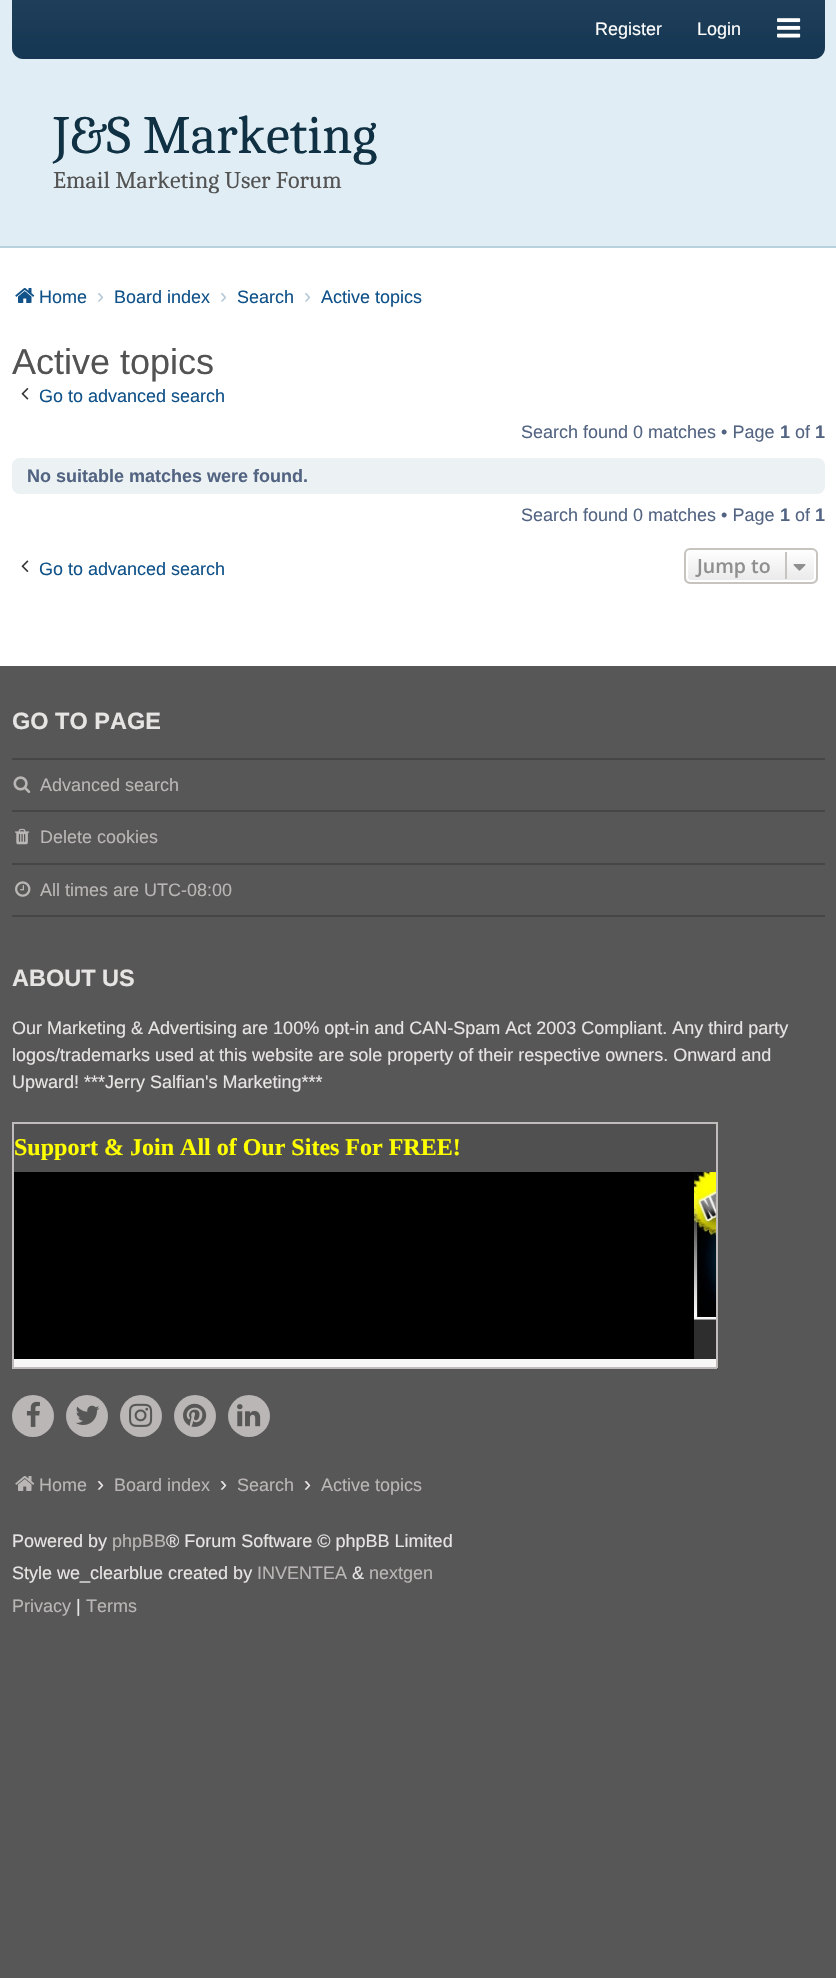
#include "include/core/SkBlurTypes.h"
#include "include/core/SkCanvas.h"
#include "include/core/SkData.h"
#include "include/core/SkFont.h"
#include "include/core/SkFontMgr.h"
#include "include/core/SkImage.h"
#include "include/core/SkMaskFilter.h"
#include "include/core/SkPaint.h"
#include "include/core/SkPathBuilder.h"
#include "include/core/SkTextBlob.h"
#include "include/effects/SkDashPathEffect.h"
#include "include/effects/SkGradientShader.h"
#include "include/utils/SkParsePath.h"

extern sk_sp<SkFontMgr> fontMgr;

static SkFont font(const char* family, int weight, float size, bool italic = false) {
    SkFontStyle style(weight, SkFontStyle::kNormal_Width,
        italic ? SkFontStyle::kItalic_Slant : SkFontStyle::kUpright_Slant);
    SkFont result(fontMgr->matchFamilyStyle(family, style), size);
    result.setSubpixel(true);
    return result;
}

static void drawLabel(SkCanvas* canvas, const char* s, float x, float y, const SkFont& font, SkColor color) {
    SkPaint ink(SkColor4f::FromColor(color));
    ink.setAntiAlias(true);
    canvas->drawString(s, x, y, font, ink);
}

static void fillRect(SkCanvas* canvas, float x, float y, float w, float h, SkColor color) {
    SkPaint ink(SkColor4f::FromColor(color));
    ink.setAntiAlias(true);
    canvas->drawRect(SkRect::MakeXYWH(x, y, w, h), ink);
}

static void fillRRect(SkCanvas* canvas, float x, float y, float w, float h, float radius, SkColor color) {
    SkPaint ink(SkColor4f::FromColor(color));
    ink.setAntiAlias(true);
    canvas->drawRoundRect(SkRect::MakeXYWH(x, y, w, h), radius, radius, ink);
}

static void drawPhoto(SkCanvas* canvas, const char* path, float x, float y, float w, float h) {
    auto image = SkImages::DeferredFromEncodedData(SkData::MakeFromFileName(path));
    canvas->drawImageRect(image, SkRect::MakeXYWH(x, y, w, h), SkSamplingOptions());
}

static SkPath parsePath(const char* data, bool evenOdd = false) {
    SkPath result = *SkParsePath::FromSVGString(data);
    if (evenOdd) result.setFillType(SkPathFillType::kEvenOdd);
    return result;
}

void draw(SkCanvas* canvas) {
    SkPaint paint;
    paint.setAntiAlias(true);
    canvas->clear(0xFFFFFFFF);
    fillRect(canvas, 0, 0, 836, 246, 0xFFE0EDF4);
    {
        const SkColor colors[] = {0xFF1F3E59, 0xFF153753};
        const float stops[] = {0, 1};
        const SkPoint ends[] = {{419, 0}, {419, 59}};
        paint.setShader(SkGradientShader::MakeLinear(ends, colors, stops, 2, SkTileMode::kClamp));
        paint.setAlpha(255);
    }
    canvas->drawPath(parsePath("M12 0H825V48C825 54 820 59 814 59H23C17 59 12 54 12 48Z"), paint);
    SkFont font1 = font("Liberation Sans", 400, 18);
    drawLabel(canvas, "Register", 595, 35, font1, 0xFFFFFFFF);
    drawLabel(canvas, "Login", 697, 35, font1, 0xFFFFFFFF);
    drawPhoto(canvas, "assets/img1.png", 777, 18, 24, 20);
    fillRect(canvas, 0, 246, 836, 2, 0xFFBAD1DE);
    SkFont font2 = font("Caladea", 400, 54);
    drawLabel(canvas, "J&S Marketing", 53, 153, font2, 0xFF103143);
    SkFont font3 = font("Caladea", 400, 24);
    drawLabel(canvas, "Email Marketing User Forum", 53, 188, font3, 0xFF535353);
    drawPhoto(canvas, "assets/img2.png", 15, 288, 20, 15);
    drawLabel(canvas, "Home", 39, 303, font1, 0xFF105289);
    SkFont font4 = font("Liberation Sans", 400, 21);
    drawLabel(canvas, "›", 97, 303, font4, 0xFFB7C9D7);
    drawLabel(canvas, "Board index", 114, 303, font1, 0xFF105289);
    drawLabel(canvas, "›", 220, 303, font4, 0xFFB7C9D7);
    drawLabel(canvas, "Search", 237, 303, font1, 0xFF105289);
    drawLabel(canvas, "›", 304, 303, font4, 0xFFB7C9D7);
    drawLabel(canvas, "Active topics", 321, 303, font1, 0xFF105289);
    SkFont font5 = font("Liberation Sans", 400, 36);
    drawLabel(canvas, "Active topics", 12, 374, font5, 0xFF535353);
    drawPhoto(canvas, "assets/img3.png", 21, 388, 8, 12);
    drawLabel(canvas, "Go to advanced search", 39, 402, font1, 0xFF105289);
    drawLabel(canvas, "Search found 0 matches • Page", 521, 438, font1, 0xFF536482);
    SkFont font6 = font("Liberation Sans", 700, 18);
    drawLabel(canvas, "1", 780, 438, font6, 0xFF536482);
    drawLabel(canvas, "of", 795, 438, font1, 0xFF536482);
    drawLabel(canvas, "1", 815, 438, font6, 0xFF536482);
    fillRRect(canvas, 12, 458, 813, 36, 8, 0xFFECF1F3);
    drawLabel(canvas, "No suitable matches were found.", 27, 482, font6, 0xFF536482);
    drawLabel(canvas, "Search found 0 matches • Page", 521, 521, font1, 0xFF536482);
    drawLabel(canvas, "1", 780, 521, font6, 0xFF536482);
    drawLabel(canvas, "of", 795, 521, font1, 0xFF536482);
    drawLabel(canvas, "1", 815, 521, font6, 0xFF536482);
    drawPhoto(canvas, "assets/img4.png", 21, 560, 8, 12);
    drawLabel(canvas, "Go to advanced search", 39, 575, font1, 0xFF105289);
    canvas->save();
    canvas->clipPath(parsePath("M690 548H812C815.5 548 818 550.5 818 554V578C818 581.5 815.5 584 812 584H690C686.5 584 684 581.5 684 578V554C684 550.5 686.5 548 690 548Z"), true);
    {
        const SkColor colors[] = {0xFFFFFFFF, 0xFFE9E9E9};
        const float stops[] = {0, 1};
        const SkPoint ends[] = {{751, 549}, {751, 582}};
        paint.setShader(SkGradientShader::MakeLinear(ends, colors, stops, 2, SkTileMode::kClamp));
        paint.setAlpha(255);
    }
    canvas->drawRect(SkRect::MakeXYWH(684, 549, 134, 33), paint);
    canvas->restore();
    paint.setStroke(true);
    paint.setStrokeWidth(2);
    paint.setShader(nullptr);
    paint.setColor(0xFFFFFFFF);
    canvas->drawRoundRect(SkRect::MakeXYWH(687, 550, 128, 31), 4, 4, paint);
    paint.setColor(0xFFC7C3BF);
    canvas->drawRoundRect(SkRect::MakeXYWH(685, 549, 132, 34), 5, 5, paint);
    SkFont font7 = font("Open Sans", 600, 19.5f);
    drawLabel(canvas, "Jump to", 697, 573, font7, 0xFF8F8F8F);
    fillRect(canvas, 785, 552, 2, 27, 0xFFC7C3BF);
    drawPhoto(canvas, "assets/img5.png", 793, 564, 13, 7);
    fillRect(canvas, 0, 666, 836, 1312, 0xFF585757);
    SkFont font8 = font("Liberation Sans", 700, 23.5f);
    drawLabel(canvas, "GO TO PAGE", 12, 729, font8, 0xFFE7E4E4);
    fillRect(canvas, 12, 758, 813, 2, 0xFF474646);
    drawPhoto(canvas, "assets/img6.png", 13, 776, 18, 17);
    drawLabel(canvas, "Advanced search", 40, 791, font1, 0xFFBAB6B6);
    fillRect(canvas, 12, 810, 813, 2, 0xFF474646);
    drawPhoto(canvas, "assets/img7.png", 15, 828, 15, 17);
    drawLabel(canvas, "Delete cookies", 40, 843, font1, 0xFFBAB6B6);
    fillRect(canvas, 12, 863, 813, 2, 0xFF474646);
    fillRect(canvas, 12, 915, 813, 2, 0xFF474646);
    drawPhoto(canvas, "assets/img8.png", 15, 881, 16, 16);
    drawLabel(canvas, "All times are UTC-08:00", 40, 896, font1, 0xFFBAB6B6);
    drawLabel(canvas, "ABOUT US", 12, 986, font8, 0xFFE7E4E4);
    drawLabel(canvas, "Our Marketing & Advertising are 100% opt-in and CAN-Spam Act 2003 Compliant. Any third party", 12, 1034, font1, 0xFFE7E4E4);
    drawLabel(canvas, "logos/trademarks used at this website are sole property of their respective owners. Onward and", 12, 1061, font1, 0xFFE7E4E4);
    drawLabel(canvas, "Upward! ***Jerry Salfian's Marketing***", 12, 1088, font1, 0xFFE7E4E4);
    fillRect(canvas, 14, 1359, 702, 8, 0xFFF8F8F8);
    fillRect(canvas, 12, 1122, 705, 2, 0xFFC0BCBC);
    fillRect(canvas, 716, 1122, 2, 246, 0xFFC0BCBC);
    fillRect(canvas, 12, 1367, 705, 2, 0xFFC0BCBC);
    fillRect(canvas, 12, 1122, 2, 246, 0xFFC0BCBC);
    fillRect(canvas, 14, 1124, 702, 48, 0xFF505050);
    SkFont font9 = font("Liberation Serif", 700, 24);
    drawLabel(canvas, "Support & Join All of Our Sites For FREE!", 14, 1155, font9, 0xFFFFFF00);
    fillRect(canvas, 14, 1172, 680, 187, 0xFF000000);
    drawPhoto(canvas, "assets/img9.png", 694, 1172, 22, 187);
    paint.setStroke(false);
    paint.setColor(0xFFBAB6B6);
    canvas->drawCircle(33, 1416, 21, paint);
    drawPhoto(canvas, "assets/img10.png", 26, 1401, 14, 26);
    canvas->drawCircle(87, 1416, 21, paint);
    drawPhoto(canvas, "assets/img11.png", 76, 1405, 24, 20);
    canvas->drawCircle(141, 1416, 21, paint);
    drawPhoto(canvas, "assets/img12.png", 129, 1403, 24, 24);
    canvas->drawCircle(195, 1416, 21, paint);
    drawPhoto(canvas, "assets/img13.png", 183, 1403, 24, 24);
    canvas->drawCircle(249, 1416, 21, paint);
    drawPhoto(canvas, "assets/img14.png", 237, 1404, 24, 23);
    drawPhoto(canvas, "assets/img15.png", 15, 1476, 20, 15);
    drawLabel(canvas, "Home", 39, 1491, font1, 0xFFBAB6B6);
    drawLabel(canvas, "›", 97, 1491, font4, 0xFFE7E4E4);
    drawLabel(canvas, "Board index", 114, 1491, font1, 0xFFBAB6B6);
    drawLabel(canvas, "›", 220, 1491, font4, 0xFFE7E4E4);
    drawLabel(canvas, "Search", 237, 1491, font1, 0xFFBAB6B6);
    drawLabel(canvas, "›", 304, 1491, font4, 0xFFE7E4E4);
    drawLabel(canvas, "Active topics", 321, 1491, font1, 0xFFBAB6B6);
    drawLabel(canvas, "Powered by", 12, 1547, font1, 0xFFE7E4E4);
    drawLabel(canvas, "phpBB", 112, 1547, font1, 0xFFBAB6B6);
    drawLabel(canvas, "® Forum Software © phpBB Limited", 166, 1547, font1, 0xFFE7E4E4);
    drawLabel(canvas, "Style we_clearblue created by", 12, 1579, font1, 0xFFE7E4E4);
    drawLabel(canvas, "INVENTEA", 257, 1579, font1, 0xFFBAB6B6);
    drawLabel(canvas, "&", 352, 1579, font1, 0xFFE7E4E4);
    drawLabel(canvas, "nextgen", 369, 1579, font1, 0xFFBAB6B6);
    drawLabel(canvas, "Privacy", 12, 1612, font1, 0xFFBAB6B6);
    drawLabel(canvas, "|", 76, 1612, font1, 0xFFE7E4E4);
    drawLabel(canvas, "Terms", 86, 1612, font1, 0xFFBAB6B6);
}
